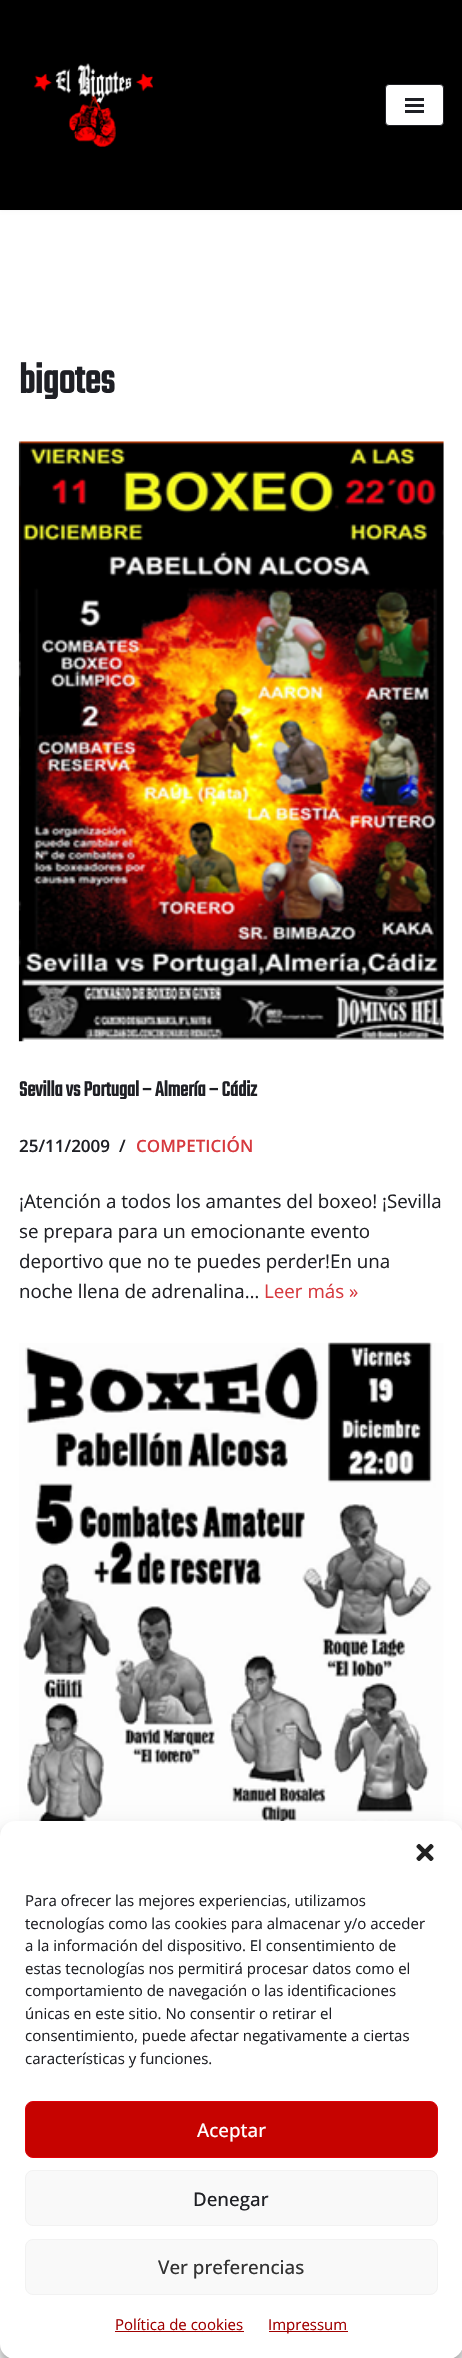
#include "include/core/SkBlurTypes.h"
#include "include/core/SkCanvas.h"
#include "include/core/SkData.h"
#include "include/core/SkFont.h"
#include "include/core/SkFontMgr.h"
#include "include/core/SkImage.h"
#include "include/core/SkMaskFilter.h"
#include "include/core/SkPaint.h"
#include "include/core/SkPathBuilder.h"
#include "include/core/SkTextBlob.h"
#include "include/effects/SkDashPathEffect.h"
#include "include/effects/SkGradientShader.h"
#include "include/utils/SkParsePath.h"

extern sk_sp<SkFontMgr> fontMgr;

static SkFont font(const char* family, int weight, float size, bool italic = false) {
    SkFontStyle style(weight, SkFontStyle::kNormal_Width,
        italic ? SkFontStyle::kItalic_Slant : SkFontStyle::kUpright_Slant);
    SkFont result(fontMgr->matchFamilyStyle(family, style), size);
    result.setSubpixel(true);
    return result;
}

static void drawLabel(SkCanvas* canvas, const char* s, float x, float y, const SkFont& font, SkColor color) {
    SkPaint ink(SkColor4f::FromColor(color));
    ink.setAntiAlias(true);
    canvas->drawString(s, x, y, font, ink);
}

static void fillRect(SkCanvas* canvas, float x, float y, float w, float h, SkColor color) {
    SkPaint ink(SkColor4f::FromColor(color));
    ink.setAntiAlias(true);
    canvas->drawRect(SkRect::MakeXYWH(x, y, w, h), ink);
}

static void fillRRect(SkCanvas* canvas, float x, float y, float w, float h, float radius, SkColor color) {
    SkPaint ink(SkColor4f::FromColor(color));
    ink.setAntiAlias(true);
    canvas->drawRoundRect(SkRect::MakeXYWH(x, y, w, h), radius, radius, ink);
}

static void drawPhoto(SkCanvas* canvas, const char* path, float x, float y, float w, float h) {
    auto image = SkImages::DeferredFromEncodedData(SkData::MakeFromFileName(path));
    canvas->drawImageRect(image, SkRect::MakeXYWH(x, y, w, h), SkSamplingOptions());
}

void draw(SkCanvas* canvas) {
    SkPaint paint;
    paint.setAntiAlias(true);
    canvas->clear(0xFFFFFFFF);
    paint.setColor(0x1A000000);
    paint.setMaskFilter(SkMaskFilter::MakeBlur(kNormal_SkBlurStyle, 2));
    canvas->drawRect(SkRect::MakeXYWH(0, -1, 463, 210), paint);
    paint.setMaskFilter(nullptr);
    fillRect(canvas, 0, 0, 462, 210, 0xFF000000);
    drawPhoto(canvas, "assets/img1.png", 34, 63, 119, 84);
    paint.setColor(0xFFFFFFFF);
    canvas->drawRoundRect(SkRect::MakeXYWH(385.5f, 84.5f, 58, 41), 3.5f, 3.5f, paint);
    paint.setStroke(true);
    paint.setStrokeWidth(1);
    paint.setColor(0xFF1F2025);
    canvas->drawRoundRect(SkRect::MakeXYWH(385.5f, 84.5f, 58, 41), 3.5f, 3.5f, paint);
    fillRect(canvas, 405, 98, 19, 3, 0xFF1F2025);
    fillRect(canvas, 405, 104, 19, 3, 0xFF1F2025);
    fillRect(canvas, 405, 110, 19, 3, 0xFF1F2025);
    SkFont font1 = font("Teko", 700, 44);
    drawLabel(canvas, "bigotes", 19, 393, font1, 0xFF1F2025);
    drawPhoto(canvas, "assets/img2.png", 18, 441, 426, 601);
    SkFont font2 = font("Teko", 700, 22.5f);
    drawLabel(canvas, "Sevilla vs Portugal – Almería – Cádiz", 19, 1096, font2, 0xFF1F2025);
    SkFont font3 = font("Open Sans", 600, 17);
    drawLabel(canvas, "25/11/2009", 19, 1152, font3, 0xFF1F2025);
    drawLabel(canvas, "/", 119, 1152, font3, 0xFF1F2025);
    drawLabel(canvas, "COMPETICIÓN", 136, 1152, font3, 0xFFD7393E);
    SkFont font4 = font("Open Sans", 400, 18.75f);
    drawLabel(canvas, "¡Atención a todos los amantes del boxeo! ¡Sevilla", 19, 1208, font4, 0xFF1F2025);
    drawLabel(canvas, "se prepara para un emocionante evento", 19, 1238, font4, 0xFF1F2025);
    drawLabel(canvas, "deportivo que no te puedes perder!En una", 19, 1268, font4, 0xFF1F2025);
    drawLabel(canvas, "noche llena de adrenalina…", 19, 1298, font4, 0xFF1F2025);
    drawLabel(canvas, "Leer más »", 264, 1298, font4, 0xFFD7393E);
    drawPhoto(canvas, "assets/img3.png", 18, 1342, 426, 479);
    paint.setStroke(false);
    paint.setColor(0x3B000000);
    paint.setMaskFilter(SkMaskFilter::MakeBlur(kNormal_SkBlurStyle, 4));
    canvas->drawRoundRect(SkRect::MakeXYWH(0, 1829, 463, 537), 15, 15, paint);
    paint.setMaskFilter(nullptr);
    paint.setColor(0x30000000);
    paint.setMaskFilter(SkMaskFilter::MakeBlur(kNormal_SkBlurStyle, 12.5f));
    canvas->drawRoundRect(SkRect::MakeXYWH(0, 1834, 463, 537), 15, 15, paint);
    paint.setMaskFilter(nullptr);
    fillRRect(canvas, 0, 1821, 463, 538, 15, 0xFFFFFFFF);
    drawPhoto(canvas, "assets/img4.png", 416, 1843, 18, 18);
    SkFont font5 = font("Open Sans", 400, 15);
    drawLabel(canvas, "Para ofrecer las mejores experiencias, utilizamos", 25, 1906, font5, 0xFF1F2025);
    drawLabel(canvas, "tecnologías como las cookies para almacenar y/o acceder", 25, 1929, font5, 0xFF1F2025);
    drawLabel(canvas, "a la información del dispositivo. El consentimiento de", 25, 1951, font5, 0xFF1F2025);
    drawLabel(canvas, "estas tecnologías nos permitirá procesar datos como el", 25, 1974, font5, 0xFF1F2025);
    drawLabel(canvas, "comportamiento de navegación o las identificaciones", 25, 1996, font5, 0xFF1F2025);
    drawLabel(canvas, "únicas en este sitio. No consentir o retirar el", 25, 2019, font5, 0xFF1F2025);
    drawLabel(canvas, "consentimiento, puede afectar negativamente a ciertas", 25, 2041, font5, 0xFF1F2025);
    drawLabel(canvas, "características y funciones.", 25, 2064, font5, 0xFF1F2025);
    paint.setColor(0xFFC60300);
    canvas->drawRoundRect(SkRect::MakeXYWH(25.5f, 2101.5f, 412, 56), 7.5f, 7.5f, paint);
    paint.setStroke(true);
    paint.setColor(0xFFE20007);
    canvas->drawRoundRect(SkRect::MakeXYWH(25.5f, 2101.5f, 412, 56), 7.5f, 7.5f, paint);
    SkFont font6 = font("Open Sans", 500, 18.75f);
    drawLabel(canvas, "Aceptar", 197, 2137, font6, 0xFFFFFFFF);
    paint.setStroke(false);
    paint.setColor(0xFFF9F9F9);
    canvas->drawRoundRect(SkRect::MakeXYWH(25.5f, 2170.5f, 412, 55), 7.5f, 7.5f, paint);
    paint.setStroke(true);
    paint.setColor(0xFFF2F2F2);
    canvas->drawRoundRect(SkRect::MakeXYWH(25.5f, 2170.5f, 412, 55), 7.5f, 7.5f, paint);
    drawLabel(canvas, "Denegar", 193, 2206, font6, 0xFF1F2025);
    paint.setStroke(false);
    paint.setColor(0xFFF9F9F9);
    canvas->drawRoundRect(SkRect::MakeXYWH(25.5f, 2239.5f, 412, 55), 7.5f, 7.5f, paint);
    paint.setStroke(true);
    paint.setColor(0xFFF2F2F2);
    canvas->drawRoundRect(SkRect::MakeXYWH(25.5f, 2239.5f, 412, 55), 7.5f, 7.5f, paint);
    drawLabel(canvas, "Ver preferencias", 158, 2274, font6, 0xFF333333);
    drawLabel(canvas, "Política de cookies", 115, 2330, font5, 0xFFA00000);
    fillRect(canvas, 115, 2331, 129, 1, 0xFFA00000);
    fillRect(canvas, 269, 2331, 79, 1, 0xFFA00000);
    drawLabel(canvas, "Impressum", 268, 2330, font5, 0xFFA00000);
}
